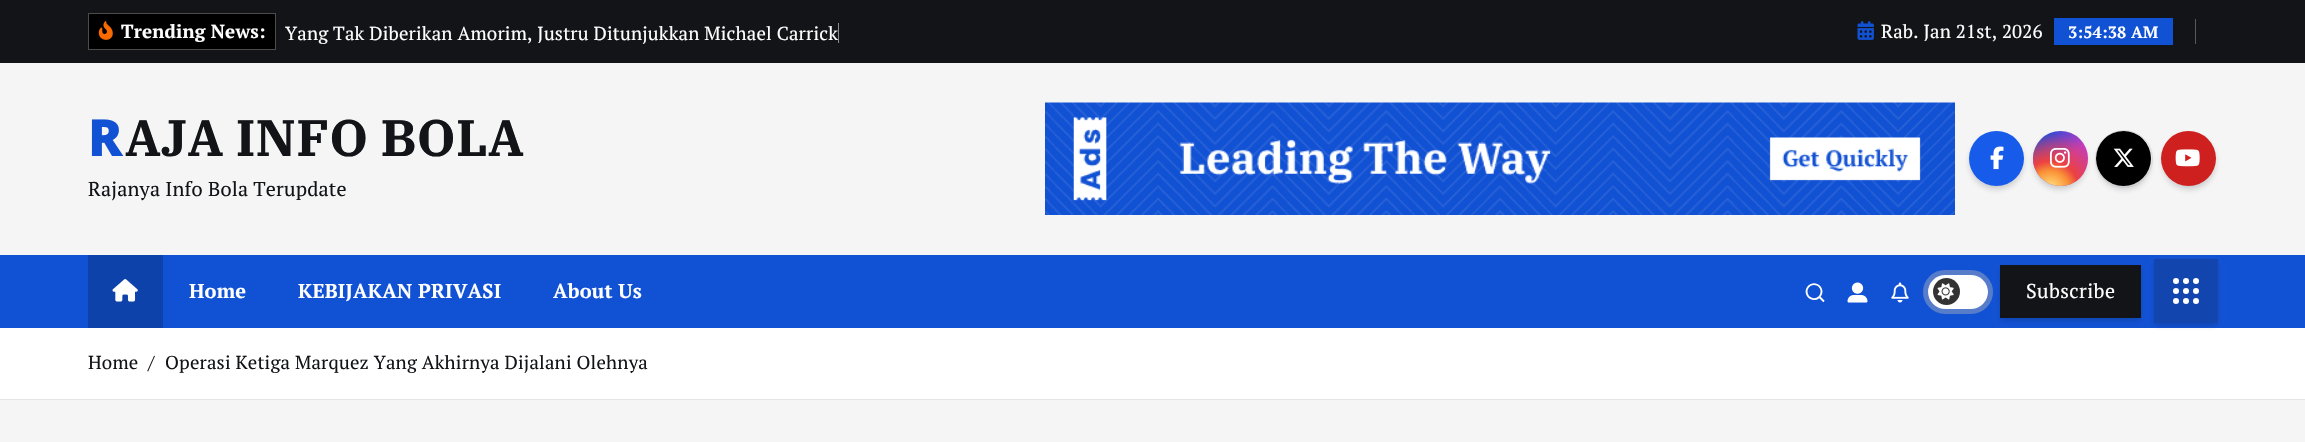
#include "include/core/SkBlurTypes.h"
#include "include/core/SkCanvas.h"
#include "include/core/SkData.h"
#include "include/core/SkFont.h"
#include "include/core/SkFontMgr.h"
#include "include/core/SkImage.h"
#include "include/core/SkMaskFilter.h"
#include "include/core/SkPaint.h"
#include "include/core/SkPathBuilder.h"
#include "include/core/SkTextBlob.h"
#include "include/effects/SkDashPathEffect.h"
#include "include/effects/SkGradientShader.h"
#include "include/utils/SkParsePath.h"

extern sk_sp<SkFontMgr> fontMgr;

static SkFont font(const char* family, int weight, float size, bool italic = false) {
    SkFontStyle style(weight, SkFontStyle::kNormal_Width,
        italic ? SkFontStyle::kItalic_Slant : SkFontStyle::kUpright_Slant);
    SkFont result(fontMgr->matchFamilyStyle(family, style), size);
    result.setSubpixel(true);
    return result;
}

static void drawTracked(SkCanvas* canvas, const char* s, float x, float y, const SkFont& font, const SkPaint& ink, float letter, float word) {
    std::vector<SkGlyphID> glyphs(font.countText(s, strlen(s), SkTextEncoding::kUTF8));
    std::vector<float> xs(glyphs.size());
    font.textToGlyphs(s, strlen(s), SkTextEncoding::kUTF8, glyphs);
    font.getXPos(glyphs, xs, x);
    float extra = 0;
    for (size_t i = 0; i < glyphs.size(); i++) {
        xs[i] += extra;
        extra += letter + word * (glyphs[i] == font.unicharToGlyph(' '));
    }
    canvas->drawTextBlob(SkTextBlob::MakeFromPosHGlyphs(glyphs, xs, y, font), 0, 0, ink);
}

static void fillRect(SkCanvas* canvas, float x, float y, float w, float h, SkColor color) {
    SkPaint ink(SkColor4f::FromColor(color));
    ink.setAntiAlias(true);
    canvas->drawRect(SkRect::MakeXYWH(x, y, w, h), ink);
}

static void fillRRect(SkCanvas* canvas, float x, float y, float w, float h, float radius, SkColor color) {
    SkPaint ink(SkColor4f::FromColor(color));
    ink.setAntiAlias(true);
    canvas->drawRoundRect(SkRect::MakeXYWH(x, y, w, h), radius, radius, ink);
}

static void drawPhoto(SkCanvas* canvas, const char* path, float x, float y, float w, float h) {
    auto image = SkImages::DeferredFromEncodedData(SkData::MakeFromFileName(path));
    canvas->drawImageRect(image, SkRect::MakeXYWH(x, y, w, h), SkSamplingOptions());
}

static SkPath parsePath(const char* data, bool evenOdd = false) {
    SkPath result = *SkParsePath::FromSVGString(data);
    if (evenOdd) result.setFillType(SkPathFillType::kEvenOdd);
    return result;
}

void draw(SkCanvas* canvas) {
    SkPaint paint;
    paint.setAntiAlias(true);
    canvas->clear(0xFFF5F5F5);
    fillRect(canvas, 0, 0, 2305, 63, 0xFF121418);
    paint.setColor(0xFF000000);
    canvas->drawRect(SkRect::MakeXYWH(88.5f, 13.5f, 187, 36), paint);
    paint.setStroke(true);
    paint.setStrokeWidth(1);
    paint.setColor(0xFF4C4C4C);
    canvas->drawRect(SkRect::MakeXYWH(88.5f, 13.5f, 187, 36), paint);
    drawPhoto(canvas, "assets/img1.png", 98, 21, 15, 19);
    SkFont font1 = font("PT Serif", 700, 18.75f);
    paint.setStroke(false);
    paint.setColor(0xFFFFFFFF);
    drawTracked(canvas, "Trending News:", 121, 38, font1, paint, 0.2f, 0);
    SkFont font2 = font("PT Serif", 400, 18.75f);
    drawTracked(canvas, "Yang Tak Diberikan Amorim, Justru Ditunjukkan Michael Carrick", 285, 40, font2, paint, 0.2f, 0);
    fillRect(canvas, 838, 23, 1, 20, 0xB3BDBDBD);
    drawPhoto(canvas, "assets/img2.png", 1857, 21, 17, 19);
    drawTracked(canvas, "Rab. Jan 21st, 2026", 1881, 38, font2, paint, 0.2f, 0);
    fillRect(canvas, 2054, 18, 119, 27, 0xFF1151D3);
    SkFont font3 = font("PT Serif", 700, 16.25f);
    drawTracked(canvas, "3:54:38 AM", 2068, 38, font3, paint, 0.2f, 0);
    fillRect(canvas, 2195, 19, 1, 25, 0xFF56585A);
    SkFont font4 = font("Noto Sans", 900, 51.25f);
    paint.setColor(0xFF1151D3);
    drawTracked(canvas, "R", 88, 156, font4, paint, 0.2f, 0);
    SkFont font5 = font("IBM Plex Serif", 700, 51.25f);
    paint.setColor(0xFF121418);
    drawTracked(canvas, "AJA INFO BOLA", 125, 156, font5, paint, 0.2f, 0);
    SkFont font6 = font("PT Serif", 400, 20);
    drawTracked(canvas, "Rajanya Info Bola Terupdate", 88, 196, font6, paint, 0.2f, 0);
    drawPhoto(canvas, "assets/img3.png", 1045, 102, 910, 113);
    paint.setColor(0x33070A19);
    paint.setMaskFilter(SkMaskFilter::MakeBlur(kNormal_SkBlurStyle, 3));
    canvas->drawRoundRect(SkRect::MakeXYWH(1970, 136, 53, 53), 26.5f, 26.5f, paint);
    paint.setMaskFilter(nullptr);
    paint.setColor(0xFF175BEB);
    canvas->drawCircle(1996.5f, 158.5f, 27.5f, paint);
    drawPhoto(canvas, "assets/img4.png", 1990, 146, 14, 24);
    paint.setColor(0x33070A19);
    paint.setMaskFilter(SkMaskFilter::MakeBlur(kNormal_SkBlurStyle, 3));
    canvas->drawRoundRect(SkRect::MakeXYWH(2034, 136, 52, 53), 26, 26, paint);
    paint.setMaskFilter(nullptr);
    {
        const SkColor colors[] = {0xFF234BD7, 0xFFC33CBE};
        const float stops[] = {0.12f, 0.58f};
        const SkPoint ends[] = {{2033, 131}, {2088, 186}};
        paint.setShader(SkGradientShader::MakeLinear(ends, colors, stops, 2, SkTileMode::kClamp));
        paint.setAlpha(255);
    }
    canvas->drawCircle(2060.5f, 158.5f, 27.5f, paint);
    {
        const SkColor colors[] = {0xFFFFE17D, 0xFFFFCD69, 0xFFFA9137, 0xFFEB4141, 0x00EB4141};
        const float stops[] = {0, 0.1f, 0.28f, 0.42f, 0.82f};
        paint.setShader(SkGradientShader::MakeRadial({2050, 190}, 69, colors, stops, 5, SkTileMode::kClamp));
        paint.setAlpha(255);
    }
    canvas->drawCircle(2060.5f, 158.5f, 27.5f, paint);
    drawPhoto(canvas, "assets/img5.png", 2050, 148, 20, 20);
    paint.setShader(nullptr);
    paint.setColor(0x33070A19);
    paint.setMaskFilter(SkMaskFilter::MakeBlur(kNormal_SkBlurStyle, 3));
    canvas->drawRoundRect(SkRect::MakeXYWH(2098, 136, 52, 53), 26, 26, paint);
    paint.setMaskFilter(nullptr);
    paint.setColor(0xFF000000);
    canvas->drawCircle(2123.5f, 158.5f, 27.5f, paint);
    drawPhoto(canvas, "assets/img6.png", 2113, 148, 21, 19);
    paint.setStroke(true);
    paint.setColor(0x66BDBDBD);
    canvas->drawCircle(2124, 159, 28.5f, paint);
    paint.setStroke(false);
    paint.setColor(0x33070A19);
    paint.setMaskFilter(SkMaskFilter::MakeBlur(kNormal_SkBlurStyle, 3));
    canvas->drawRoundRect(SkRect::MakeXYWH(2163, 136, 52, 53), 26, 26, paint);
    paint.setMaskFilter(nullptr);
    paint.setColor(0xFFCD201F);
    canvas->drawCircle(2188.5f, 158.5f, 27.5f, paint);
    drawPhoto(canvas, "assets/img7.png", 2175, 149, 25, 18);
    fillRect(canvas, 0, 255, 2305, 73, 0xFF1151D3);
    fillRect(canvas, 88, 255, 75, 73, 0xFF0E42AB);
    drawPhoto(canvas, "assets/img8.png", 112, 279, 26, 23);
    SkFont font7 = font("PT Serif", 700, 20);
    paint.setColor(0xFFFFFFFF);
    drawTracked(canvas, "Home", 189, 298, font7, paint, 0.2f, 0);
    drawTracked(canvas, "KEBIJAKAN PRIVASI", 298, 298, font7, paint, 0.2f, 0);
    drawTracked(canvas, "About Us", 553, 298, font7, paint, 0.2f, 0);
    drawPhoto(canvas, "assets/img9.png", 1805, 283, 20, 20);
    drawPhoto(canvas, "assets/img10.png", 1847, 282, 21, 21);
    drawPhoto(canvas, "assets/img11.png", 1891, 282, 18, 21);
    paint.setStroke(true);
    paint.setStrokeWidth(5);
    paint.setColor(0xFF567CCA);
    canvas->drawRoundRect(SkRect::MakeXYWH(1925.5f, 272.5f, 65, 39), 19.5f, 19.5f, paint);
    fillRRect(canvas, 1928, 275, 60, 34, 17, 0xFFFFFFFF);
    paint.setStroke(false);
    paint.setColor(0xFF333333);
    canvas->drawCircle(1946.5f, 291.5f, 13.5f, paint);
    drawPhoto(canvas, "assets/img12.png", 1937, 283, 17, 17);
    fillRect(canvas, 0, 328, 2305, 71, 0xFFFFFFFF);
    paint.setColor(0x33070A19);
    paint.setMaskFilter(SkMaskFilter::MakeBlur(kNormal_SkBlurStyle, 3));
    canvas->drawRect(SkRect::MakeXYWH(2001, 270, 139, 50), paint);
    paint.setMaskFilter(nullptr);
    fillRect(canvas, 2000, 265, 141, 53, 0xFF121418);
    paint.setColor(0xFFFFFFFF);
    drawTracked(canvas, "Subscribe", 2026, 298, font6, paint, 0.4f, 0);
    canvas->save();
    canvas->clipPath(parsePath("M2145 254H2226V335H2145ZM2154 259H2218V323H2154Z", true), true);
    paint.setColor(0x33070A19);
    paint.setMaskFilter(SkMaskFilter::MakeBlur(kNormal_SkBlurStyle, 3));
    canvas->drawRect(SkRect::MakeXYWH(2155, 264, 61, 61), paint);
    paint.setMaskFilter(nullptr);
    canvas->restore();
    fillRect(canvas, 2154, 259, 64, 64, 0x33121418);
    paint.setColor(0xFFFFFFFF);
    canvas->drawCircle(2176, 281, 3, paint);
    canvas->drawCircle(2186, 281, 3, paint);
    canvas->drawCircle(2196, 281, 3, paint);
    canvas->drawCircle(2176, 291, 3, paint);
    canvas->drawCircle(2186, 291, 3, paint);
    canvas->drawCircle(2196, 291, 3, paint);
    canvas->drawCircle(2176, 301, 3, paint);
    canvas->drawCircle(2186, 301, 3, paint);
    canvas->drawCircle(2196, 301, 3, paint);
    fillRect(canvas, 0, 399, 2305, 1, 0xFFE4E4E4);
    paint.setColor(0xFF121418);
    drawTracked(canvas, "Home", 88, 369, font2, paint, 0.2f, 0);
    drawTracked(canvas, "/", 148, 369, font2, paint, 0.2f, 0);
    drawTracked(canvas, "Operasi Ketiga Marquez Yang Akhirnya Dijalani Olehnya", 165, 369, font2, paint, 0.2f, 0);
}
